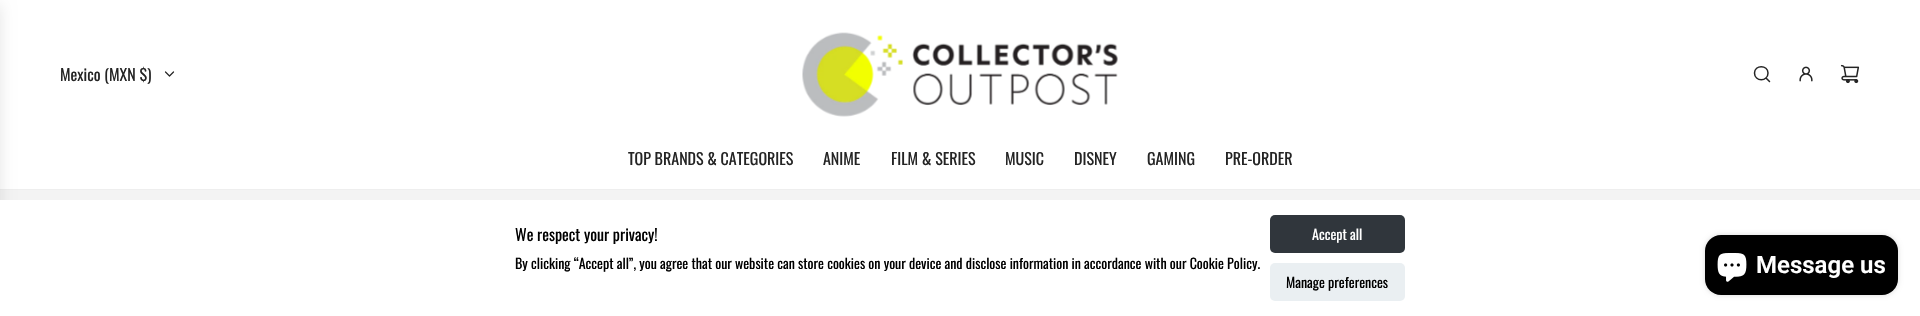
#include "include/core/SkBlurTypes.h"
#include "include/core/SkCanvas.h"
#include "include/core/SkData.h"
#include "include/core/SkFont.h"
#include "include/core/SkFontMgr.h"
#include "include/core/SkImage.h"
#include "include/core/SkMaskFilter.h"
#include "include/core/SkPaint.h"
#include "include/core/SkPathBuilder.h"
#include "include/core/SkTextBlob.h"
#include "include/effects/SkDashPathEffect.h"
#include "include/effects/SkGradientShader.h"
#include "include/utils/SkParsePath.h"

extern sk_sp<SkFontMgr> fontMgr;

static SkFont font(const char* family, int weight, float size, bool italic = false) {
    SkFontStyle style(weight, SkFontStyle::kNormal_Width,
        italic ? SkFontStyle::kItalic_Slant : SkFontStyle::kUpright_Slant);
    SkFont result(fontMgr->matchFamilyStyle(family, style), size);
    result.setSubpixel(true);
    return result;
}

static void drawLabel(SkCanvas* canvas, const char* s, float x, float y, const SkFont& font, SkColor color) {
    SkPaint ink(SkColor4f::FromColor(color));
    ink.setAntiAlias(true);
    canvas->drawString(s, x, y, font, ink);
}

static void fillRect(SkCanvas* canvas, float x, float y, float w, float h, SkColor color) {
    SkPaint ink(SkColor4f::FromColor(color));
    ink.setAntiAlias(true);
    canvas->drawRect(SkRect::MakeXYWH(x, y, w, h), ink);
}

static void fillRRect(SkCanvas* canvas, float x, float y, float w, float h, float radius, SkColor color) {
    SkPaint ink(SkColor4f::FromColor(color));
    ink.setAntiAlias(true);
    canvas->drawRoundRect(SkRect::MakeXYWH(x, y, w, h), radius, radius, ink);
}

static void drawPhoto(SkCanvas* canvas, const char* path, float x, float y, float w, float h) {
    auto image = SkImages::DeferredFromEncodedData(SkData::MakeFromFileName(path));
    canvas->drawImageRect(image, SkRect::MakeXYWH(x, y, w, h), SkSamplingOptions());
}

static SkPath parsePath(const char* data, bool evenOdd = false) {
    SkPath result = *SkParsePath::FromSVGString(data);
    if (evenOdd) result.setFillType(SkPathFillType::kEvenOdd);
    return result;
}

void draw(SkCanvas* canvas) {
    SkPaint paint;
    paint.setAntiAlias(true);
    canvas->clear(0xFFF3F3F3);
    fillRect(canvas, 0, 0, 1920, 189, 0xFFFFFFFF);
    fillRect(canvas, 0, 189, 1920, 1, 0xFFEEEEEE);
    paint.setColor(0x1A000000);
    paint.setMaskFilter(SkMaskFilter::MakeBlur(kNormal_SkBlurStyle, 7.5f));
    canvas->drawRect(SkRect::MakeXYWH(-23, 5, 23, 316), paint);
    paint.setMaskFilter(nullptr);
    SkFont font1 = font("Oswald", 400, 16);
    drawLabel(canvas, "Mexico (MXN $)", 60, 81, font1, 0xFF242424);
    paint.setStroke(true);
    paint.setStrokeWidth(1.2f);
    paint.setStrokeCap(SkPaint::kRound_Cap);
    paint.setStrokeJoin(SkPaint::kRound_Join);
    paint.setColor(0xFF242424);
    canvas->drawPath(parsePath("M165.5 72L169.5 76L173.5 72"), paint);
    drawPhoto(canvas, "assets/img1.png", 802, 32, 316, 85);
    paint.setStrokeWidth(1.5f);
    canvas->drawPath(parsePath("M1766 78L1769.5 81.5M1754.5 73C1754.5 82 1768 82 1768 73C1768 64.5 1754.5 64.5 1754.5 73Z"), paint);
    drawPhoto(canvas, "assets/img2.png", 1799, 66, 14, 16);
    drawPhoto(canvas, "assets/img3.png", 1840, 64, 20, 20);
    drawLabel(canvas, "TOP BRANDS & CATEGORIES", 628, 165, font1, 0xFF242424);
    drawLabel(canvas, "ANIME", 823, 165, font1, 0xFF242424);
    drawLabel(canvas, "FILM & SERIES", 891, 165, font1, 0xFF242424);
    drawLabel(canvas, "MUSIC", 1005, 165, font1, 0xFF242424);
    drawLabel(canvas, "DISNEY", 1074, 165, font1, 0xFF242424);
    drawLabel(canvas, "GAMING", 1147, 165, font1, 0xFF242424);
    drawLabel(canvas, "PRE-ORDER", 1225, 165, font1, 0xFF242424);
    fillRect(canvas, 0, 200, 1920, 116, 0xFFFFFFFF);
    drawLabel(canvas, "We respect your privacy!", 515, 241, font1, 0xFF000000);
    SkFont font2 = font("Oswald", 400, 14);
    drawLabel(canvas, "By clicking “Accept all”, you agree that our website can store cookies on your device and disclose information in accordance with our Cookie Policy.", 515, 269, font2, 0xFF000000);
    fillRRect(canvas, 1270, 215, 135, 38, 5, 0xFF30363C);
    drawLabel(canvas, "Accept all", 1312, 240, font2, 0xFFFFFFFF);
    fillRRect(canvas, 1270, 263, 135, 38, 5, 0xFFEAEFF2);
    drawLabel(canvas, "Manage preferences", 1286, 288, font2, 0xFF000000);
    paint.setStroke(false);
    paint.setColor(0x26000000);
    paint.setMaskFilter(SkMaskFilter::MakeBlur(kNormal_SkBlurStyle, 2.5f));
    canvas->drawRoundRect(SkRect::MakeXYWH(1705, 235, 193, 60), 16, 16, paint);
    paint.setMaskFilter(nullptr);
    fillRRect(canvas, 1705, 235, 193, 60, 16, 0xFF000000);
    drawPhoto(canvas, "assets/img4.png", 1717, 253, 30, 29);
    SkFont font3 = font("Roboto", 600, 24);
    drawLabel(canvas, "Message us", 1756, 273, font3, 0xFFFFFFFF);
}
